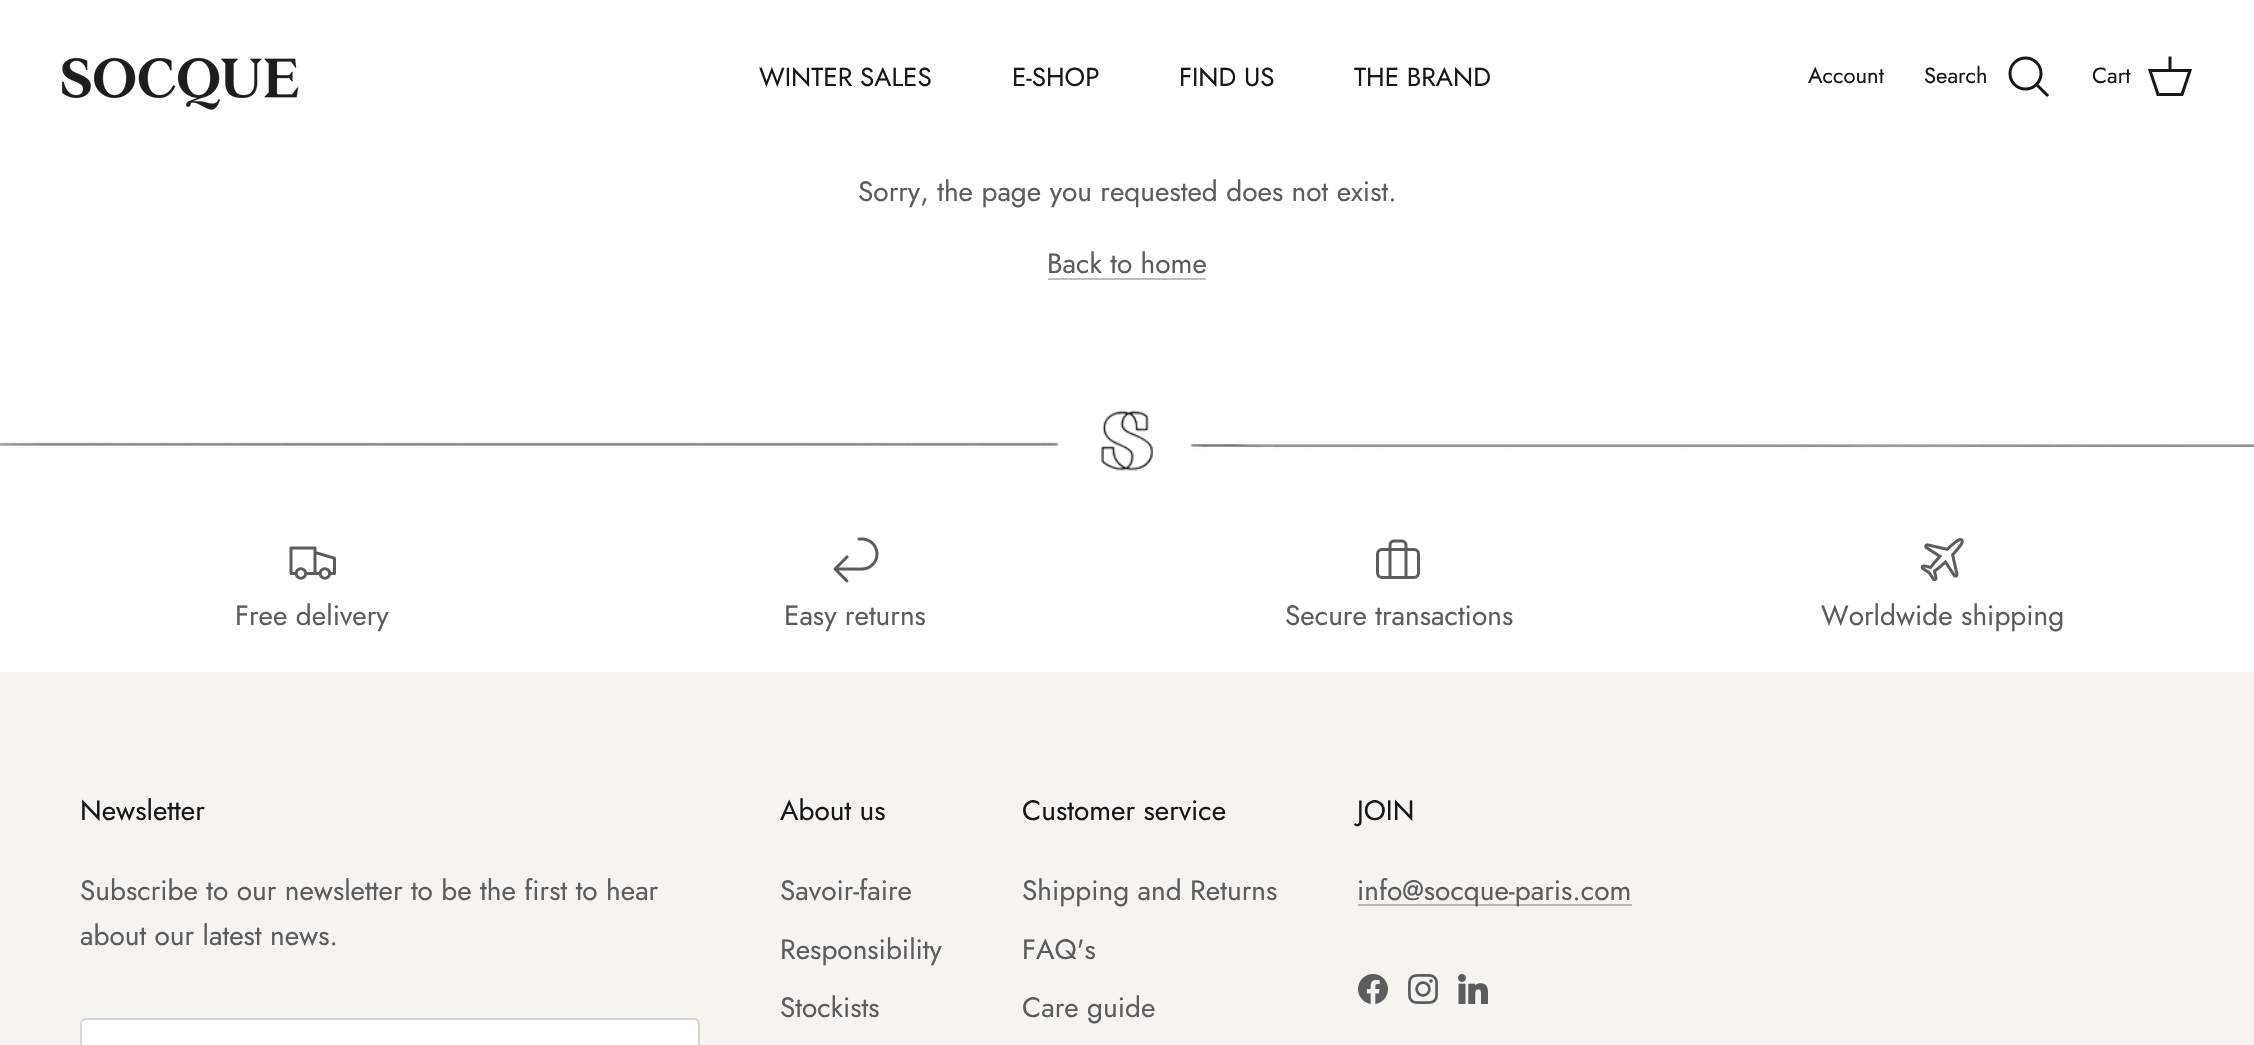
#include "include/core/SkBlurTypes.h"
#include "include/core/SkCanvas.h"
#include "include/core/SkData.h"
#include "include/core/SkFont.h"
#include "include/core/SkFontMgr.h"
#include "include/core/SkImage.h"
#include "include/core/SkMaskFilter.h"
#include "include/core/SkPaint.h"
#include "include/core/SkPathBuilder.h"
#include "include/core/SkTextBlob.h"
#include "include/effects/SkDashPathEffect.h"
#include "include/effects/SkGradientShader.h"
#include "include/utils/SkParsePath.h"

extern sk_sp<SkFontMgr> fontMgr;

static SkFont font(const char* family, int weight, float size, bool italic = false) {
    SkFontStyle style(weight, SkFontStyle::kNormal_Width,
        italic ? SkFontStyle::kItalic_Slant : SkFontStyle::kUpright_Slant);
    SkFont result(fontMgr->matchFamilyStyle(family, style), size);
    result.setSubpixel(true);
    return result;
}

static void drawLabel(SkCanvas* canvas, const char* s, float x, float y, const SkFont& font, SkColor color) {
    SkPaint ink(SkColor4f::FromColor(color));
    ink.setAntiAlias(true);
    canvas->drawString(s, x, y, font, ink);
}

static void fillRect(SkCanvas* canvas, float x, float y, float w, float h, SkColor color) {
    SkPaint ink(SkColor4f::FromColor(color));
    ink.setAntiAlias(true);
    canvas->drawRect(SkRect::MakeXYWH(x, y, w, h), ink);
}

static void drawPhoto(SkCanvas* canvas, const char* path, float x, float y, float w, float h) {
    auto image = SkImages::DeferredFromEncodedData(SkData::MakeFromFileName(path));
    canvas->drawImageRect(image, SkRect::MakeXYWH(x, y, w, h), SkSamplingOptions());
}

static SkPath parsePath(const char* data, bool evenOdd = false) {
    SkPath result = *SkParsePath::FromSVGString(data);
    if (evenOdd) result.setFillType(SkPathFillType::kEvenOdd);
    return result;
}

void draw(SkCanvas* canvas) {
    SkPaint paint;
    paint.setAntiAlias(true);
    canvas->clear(0xFFFFFFFF);
    drawPhoto(canvas, "assets/img1.png", 61, 57, 238, 53);
    SkFont font1 = font("Jost", 400, 26);
    drawLabel(canvas, "WINTER SALES", 759, 86, font1, 0xFF171717);
    drawLabel(canvas, "E-SHOP", 1012, 86, font1, 0xFF171717);
    drawLabel(canvas, "FIND US", 1179, 86, font1, 0xFF171717);
    drawLabel(canvas, "THE BRAND", 1354, 86, font1, 0xFF171717);
    SkFont font2 = font("Jost", 400, 22);
    drawLabel(canvas, "Account", 1808, 83, font2, 0xFF171717);
    drawLabel(canvas, "Search", 1924, 83, font2, 0xFF171717);
    paint.setStroke(true);
    paint.setStrokeWidth(3);
    paint.setColor(0xFF171717);
    canvas->drawCircle(2025.5f, 73.5f, 15.5f, paint);
    paint.setStrokeCap(SkPaint::kSquare_Cap);
    canvas->drawPath(parsePath("M2038 86L2047 95"), paint);
    drawLabel(canvas, "Cart", 2092, 83, font2, 0xFF171717);
    paint.setStrokeCap(SkPaint::kButt_Cap);
    canvas->drawPath(parsePath("M2150 70.5H2190L2182 94.5H2158Z"), paint);
    paint.setStrokeCap(SkPaint::kSquare_Cap);
    canvas->drawPath(parsePath("M2170 70V58"), paint);
    SkFont font3 = font("Jost", 400, 28);
    drawLabel(canvas, "Sorry, the page you requested does not exist.", 858, 201, font3, 0xFF5C5C5C);
    drawLabel(canvas, "Back to home", 1047, 273, font3, 0xFF5C5C5C);
    fillRect(canvas, 1048, 278, 158, 2, 0xFFBEBEBE);
    drawPhoto(canvas, "assets/img2.png", 0, 410, 2254, 61);
    drawPhoto(canvas, "assets/img3.png", 289, 546, 47, 34);
    drawLabel(canvas, "Free delivery", 235, 625, font3, 0xFF5C5C5C);
    drawPhoto(canvas, "assets/img4.png", 833, 537, 46, 46);
    drawLabel(canvas, "Easy returns", 784, 625, font3, 0xFF5C5C5C);
    paint.setStrokeCap(SkPaint::kButt_Cap);
    paint.setColor(0xFF5C5C5C);
    canvas->drawRoundRect(SkRect::MakeXYWH(1377.5f, 549.5f, 41, 28), 4.5f, 4.5f, paint);
    canvas->drawPath(parsePath("M1406 577.5V545C1406 544 1405.5 543 1405 542.5C1404 541.5 1403 541 1402 541H1394C1391.5 541 1390 543 1390 545V577.5"), paint);
    drawLabel(canvas, "Secure transactions", 1285, 625, font3, 0xFF5C5C5C);
    drawPhoto(canvas, "assets/img5.png", 1920, 538, 44, 44);
    drawLabel(canvas, "Worldwide shipping", 1821, 625, font3, 0xFF5C5C5C);
    fillRect(canvas, 0, 672, 2254, 373, 0xFFF5F4EF);
    drawLabel(canvas, "Newsletter", 80, 820, font3, 0xFF171717);
    drawLabel(canvas, "Subscribe to our newsletter to be the first to hear", 80, 900, font3, 0xFF5C5C5C);
    drawLabel(canvas, "about our latest news.", 80, 945, font3, 0xFF5C5C5C);
    paint.setStroke(false);
    paint.setColor(0xFFFFFFFF);
    canvas->drawRoundRect(SkRect::MakeXYWH(81, 1019, 618, 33), 5, 5, paint);
    paint.setStroke(true);
    paint.setStrokeWidth(2);
    paint.setColor(0xFFD6D6D6);
    canvas->drawRoundRect(SkRect::MakeXYWH(81, 1019, 618, 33), 5, 5, paint);
    drawLabel(canvas, "About us", 780, 820, font3, 0xFF171717);
    drawLabel(canvas, "Savoir-faire", 780, 900, font3, 0xFF5C5C5C);
    drawLabel(canvas, "Responsibility", 780, 959, font3, 0xFF5C5C5C);
    drawLabel(canvas, "Stockists", 780, 1017, font3, 0xFF5C5C5C);
    drawLabel(canvas, "Customer service", 1022, 820, font3, 0xFF171717);
    drawLabel(canvas, "Shipping and Returns", 1022, 900, font3, 0xFF5C5C5C);
    drawLabel(canvas, "FAQ's", 1022, 959, font3, 0xFF5C5C5C);
    drawLabel(canvas, "Care guide", 1022, 1017, font3, 0xFF5C5C5C);
    drawLabel(canvas, "JOIN", 1357, 820, font3, 0xFF171717);
    fillRect(canvas, 1358, 904, 274, 2, 0xFFB8B7B4);
    drawLabel(canvas, "info@socque-paris.com", 1357, 900, font3, 0xFF5C5C5C);
    drawPhoto(canvas, "assets/img6.png", 1358, 974, 30, 30);
    drawPhoto(canvas, "assets/img7.png", 1408, 974, 30, 30);
    drawPhoto(canvas, "assets/img8.png", 1458, 974, 30, 30);
}
